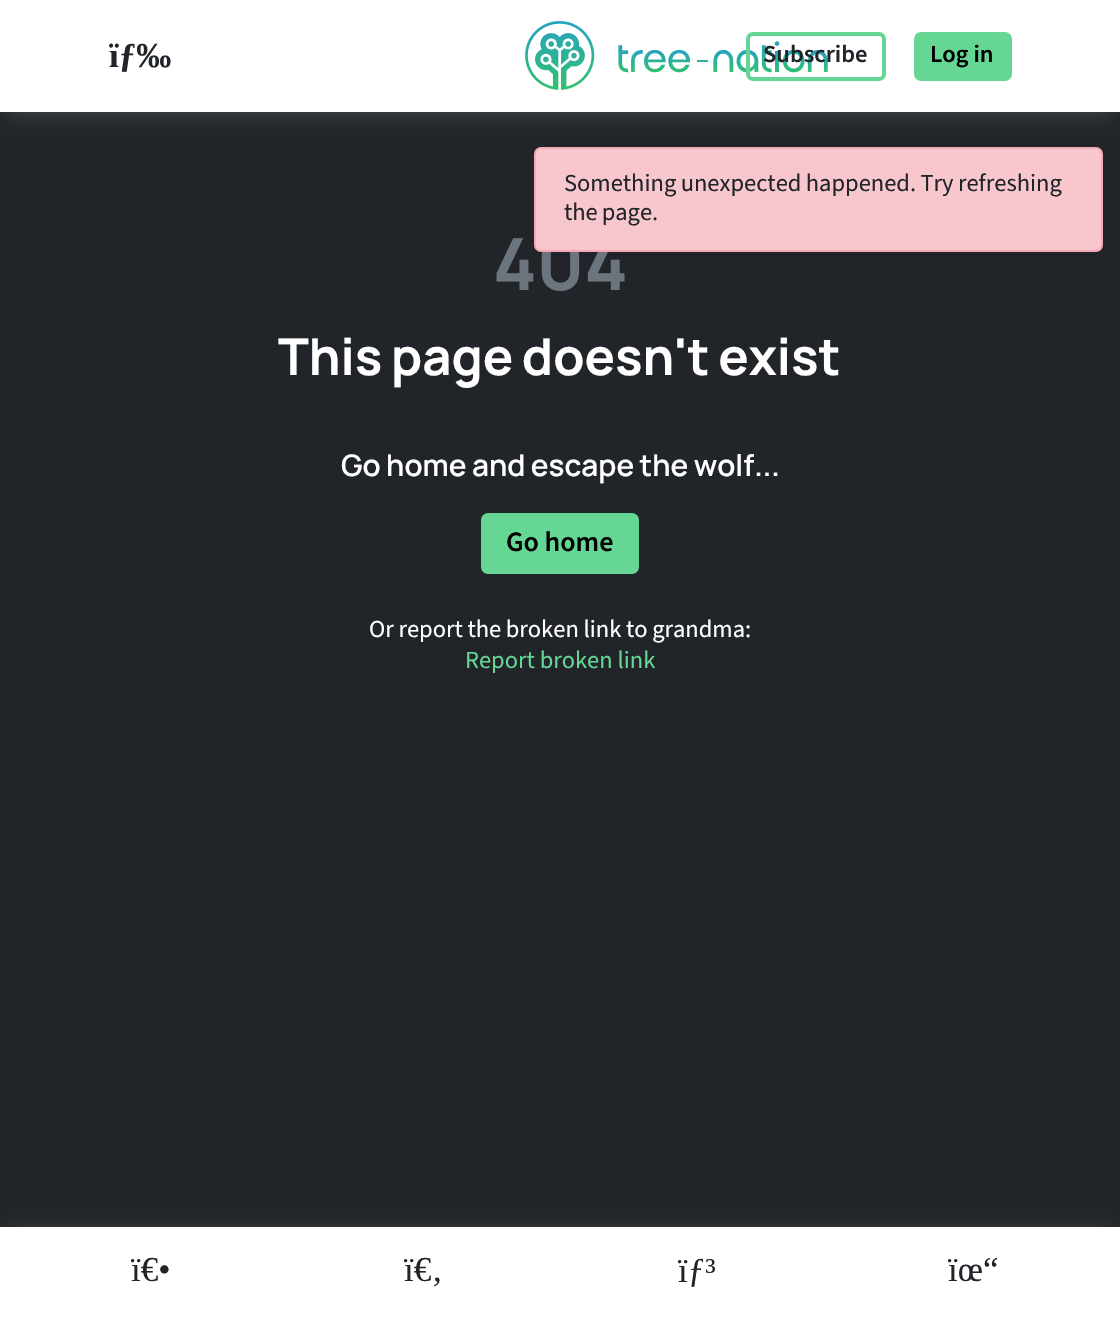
#include "include/core/SkBlurTypes.h"
#include "include/core/SkCanvas.h"
#include "include/core/SkData.h"
#include "include/core/SkFont.h"
#include "include/core/SkFontMgr.h"
#include "include/core/SkImage.h"
#include "include/core/SkMaskFilter.h"
#include "include/core/SkPaint.h"
#include "include/core/SkPathBuilder.h"
#include "include/core/SkTextBlob.h"
#include "include/effects/SkDashPathEffect.h"
#include "include/effects/SkGradientShader.h"
#include "include/utils/SkParsePath.h"

extern sk_sp<SkFontMgr> fontMgr;

static SkFont font(const char* family, int weight, float size, bool italic = false) {
    SkFontStyle style(weight, SkFontStyle::kNormal_Width,
        italic ? SkFontStyle::kItalic_Slant : SkFontStyle::kUpright_Slant);
    SkFont result(fontMgr->matchFamilyStyle(family, style), size);
    result.setSubpixel(true);
    return result;
}

static void drawLabel(SkCanvas* canvas, const char* s, float x, float y, const SkFont& font, SkColor color) {
    SkPaint ink(SkColor4f::FromColor(color));
    ink.setAntiAlias(true);
    canvas->drawString(s, x, y, font, ink);
}

static void drawTracked(SkCanvas* canvas, const char* s, float x, float y, const SkFont& font, const SkPaint& ink, float letter, float word) {
    std::vector<SkGlyphID> glyphs(font.countText(s, strlen(s), SkTextEncoding::kUTF8));
    std::vector<float> xs(glyphs.size());
    font.textToGlyphs(s, strlen(s), SkTextEncoding::kUTF8, glyphs);
    font.getXPos(glyphs, xs, x);
    float extra = 0;
    for (size_t i = 0; i < glyphs.size(); i++) {
        xs[i] += extra;
        extra += letter + word * (glyphs[i] == font.unicharToGlyph(' '));
    }
    canvas->drawTextBlob(SkTextBlob::MakeFromPosHGlyphs(glyphs, xs, y, font), 0, 0, ink);
}

static void fillRect(SkCanvas* canvas, float x, float y, float w, float h, SkColor color) {
    SkPaint ink(SkColor4f::FromColor(color));
    ink.setAntiAlias(true);
    canvas->drawRect(SkRect::MakeXYWH(x, y, w, h), ink);
}

static void drawPhoto(SkCanvas* canvas, const char* path, float x, float y, float w, float h) {
    auto image = SkImages::DeferredFromEncodedData(SkData::MakeFromFileName(path));
    canvas->drawImageRect(image, SkRect::MakeXYWH(x, y, w, h), SkSamplingOptions());
}

void draw(SkCanvas* canvas) {
    SkPaint paint;
    paint.setAntiAlias(true);
    canvas->clear(0xFF212529);
    paint.setColor(0x8CB3ACA7);
    paint.setMaskFilter(SkMaskFilter::MakeBlur(kNormal_SkBlurStyle, 13));
    canvas->drawRect(SkRect::MakeXYWH(7, 7, 1106, 98), paint);
    paint.setMaskFilter(nullptr);
    fillRect(canvas, 0, 0, 1120, 112, 0xFFFFFFFF);
    SkFont font1 = font("Liberation Serif", 700, 35);
    drawLabel(canvas, "ïƒ‰", 109, 67, font1, 0xFF212529);
    drawPhoto(canvas, "assets/img1.png", 525, 21, 303, 69);
    paint.setStroke(true);
    paint.setStrokeWidth(4);
    paint.setColor(0xFF65D693);
    canvas->drawRoundRect(SkRect::MakeXYWH(748, 34, 136, 45), 5, 5, paint);
    SkFont font2 = font("Source Sans 3", 600, 24.5f);
    drawLabel(canvas, "Subscribe", 763, 62, font2, 0xFF212529);
    paint.setStroke(false);
    canvas->drawRoundRect(SkRect::MakeXYWH(916, 34, 94, 45), 5, 5, paint);
    paint.setStroke(true);
    canvas->drawRoundRect(SkRect::MakeXYWH(916, 34, 94, 45), 5, 5, paint);
    drawLabel(canvas, "Log in", 930, 62, font2, 0xFF000000);
    SkFont font3 = font("Manrope", 700, 72);
    drawLabel(canvas, "404", 493, 290, font3, 0xFF6C757D);
    SkFont font4 = font("Manrope", 700, 50.75f);
    paint.setStroke(false);
    paint.setColor(0xFFFFFFFF);
    drawTracked(canvas, "This page doesn't exist", 278, 375, font4, paint, 0, -1.5f);
    SkFont font5 = font("Manrope", 600, 29.75f);
    drawTracked(canvas, "Go home and escape the wolf...", 341, 476, font5, paint, 0, -0.5f);
    paint.setColor(0xFF65D693);
    canvas->drawRoundRect(SkRect::MakeXYWH(483, 515, 154, 57), 5, 5, paint);
    paint.setStroke(true);
    canvas->drawRoundRect(SkRect::MakeXYWH(483, 515, 154, 57), 5, 5, paint);
    SkFont font6 = font("Source Sans 3", 600, 28);
    drawLabel(canvas, "Go home", 506, 551, font6, 0xFF000000);
    SkFont font7 = font("Source Sans 3", 400, 24.5f);
    paint.setStroke(false);
    paint.setColor(0xFFFFFFFF);
    drawTracked(canvas, "Or report the broken link to grandma:", 369, 637, font7, paint, 0, -0.25f);
    drawLabel(canvas, "Report broken link", 465, 668, font7, 0xFF65D693);
    paint.setColor(0x8CB3ACA7);
    paint.setMaskFilter(SkMaskFilter::MakeBlur(kNormal_SkBlurStyle, 13));
    canvas->drawRect(SkRect::MakeXYWH(7, 1241, 1106, 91), paint);
    paint.setMaskFilter(nullptr);
    fillRect(canvas, 0, 1227, 1120, 104, 0xFFFFFFFF);
    SkFont font8 = font("Liberation Serif", 400, 35);
    drawLabel(canvas, "ï€•", 131, 1281, font8, 0xFF212529);
    drawLabel(canvas, "ï€‚", 404, 1281, font8, 0xFF212529);
    drawLabel(canvas, "ïƒ³", 678, 1282, font8, 0xFF212529);
    drawLabel(canvas, "ïœ“", 948, 1281, font8, 0xFF212529);
    paint.setColor(0xFFF7C7CD);
    canvas->drawRoundRect(SkRect::MakeXYWH(535, 148, 567, 103), 6, 6, paint);
    paint.setStroke(true);
    paint.setStrokeWidth(2);
    paint.setColor(0xFFF4AAB5);
    canvas->drawRoundRect(SkRect::MakeXYWH(535, 148, 567, 103), 6, 6, paint);
    paint.setStroke(false);
    paint.setColor(0xFF212529);
    drawTracked(canvas, "Something unexpected happened. Try refreshing", 564, 191, font7, paint, 0, -0.5f);
    drawTracked(canvas, "the page.", 564, 220, font7, paint, 0, -1);
}
